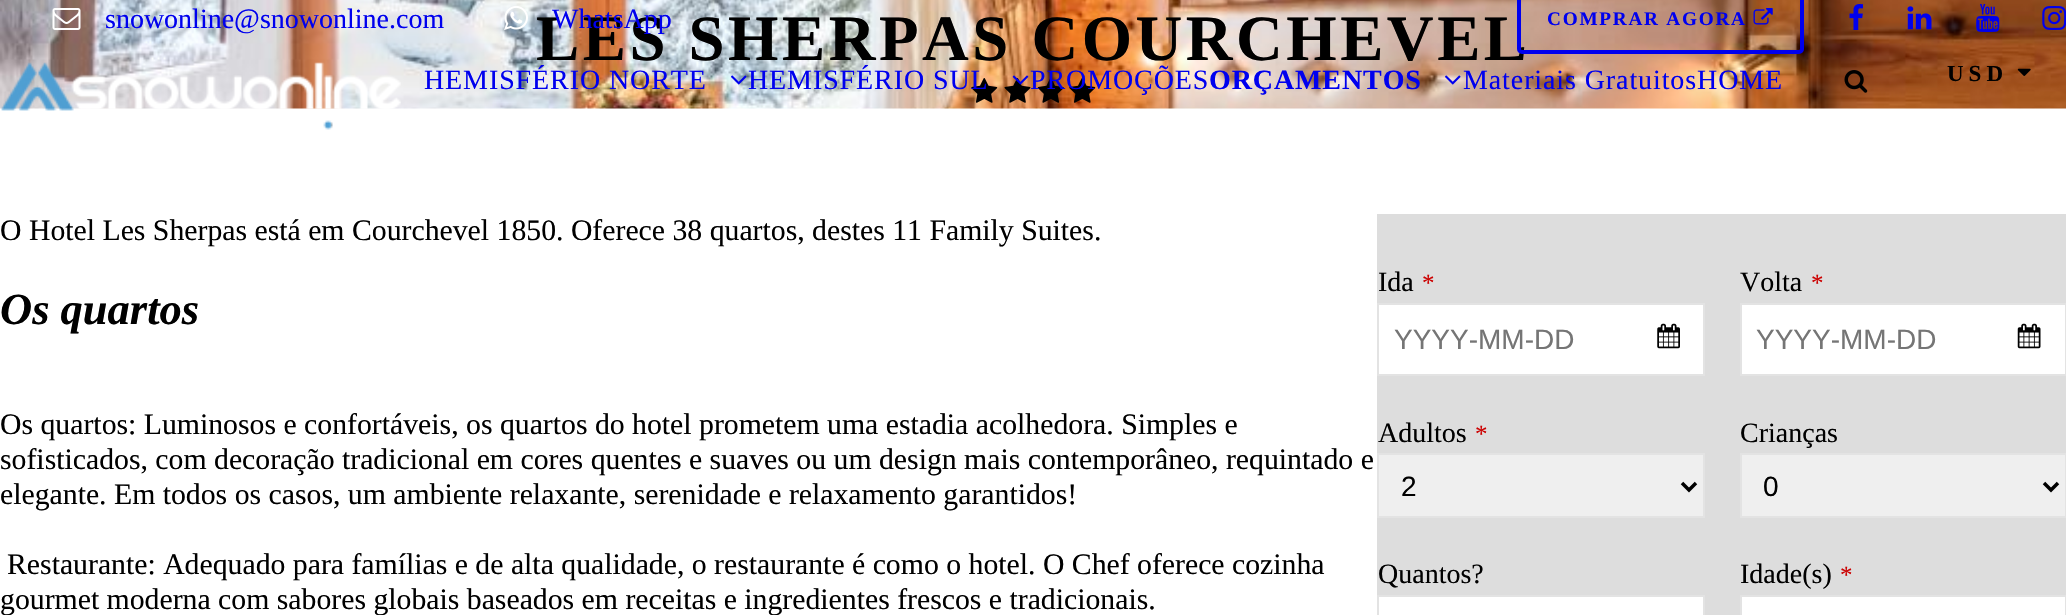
#include "include/core/SkBlurTypes.h"
#include "include/core/SkCanvas.h"
#include "include/core/SkData.h"
#include "include/core/SkFont.h"
#include "include/core/SkFontMgr.h"
#include "include/core/SkImage.h"
#include "include/core/SkMaskFilter.h"
#include "include/core/SkPaint.h"
#include "include/core/SkPathBuilder.h"
#include "include/core/SkTextBlob.h"
#include "include/effects/SkDashPathEffect.h"
#include "include/effects/SkGradientShader.h"
#include "include/utils/SkParsePath.h"

extern sk_sp<SkFontMgr> fontMgr;

static SkFont font(const char* family, int weight, float size, bool italic = false) {
    SkFontStyle style(weight, SkFontStyle::kNormal_Width,
        italic ? SkFontStyle::kItalic_Slant : SkFontStyle::kUpright_Slant);
    SkFont result(fontMgr->matchFamilyStyle(family, style), size);
    result.setSubpixel(true);
    return result;
}

static void drawLabel(SkCanvas* canvas, const char* s, float x, float y, const SkFont& font, SkColor color) {
    SkPaint ink(SkColor4f::FromColor(color));
    ink.setAntiAlias(true);
    canvas->drawString(s, x, y, font, ink);
}

static void drawTracked(SkCanvas* canvas, const char* s, float x, float y, const SkFont& font, const SkPaint& ink, float letter, float word) {
    std::vector<SkGlyphID> glyphs(font.countText(s, strlen(s), SkTextEncoding::kUTF8));
    std::vector<float> xs(glyphs.size());
    font.textToGlyphs(s, strlen(s), SkTextEncoding::kUTF8, glyphs);
    font.getXPos(glyphs, xs, x);
    float extra = 0;
    for (size_t i = 0; i < glyphs.size(); i++) {
        xs[i] += extra;
        extra += letter + word * (glyphs[i] == font.unicharToGlyph(' '));
    }
    canvas->drawTextBlob(SkTextBlob::MakeFromPosHGlyphs(glyphs, xs, y, font), 0, 0, ink);
}

static void fillRect(SkCanvas* canvas, float x, float y, float w, float h, SkColor color) {
    SkPaint ink(SkColor4f::FromColor(color));
    ink.setAntiAlias(true);
    canvas->drawRect(SkRect::MakeXYWH(x, y, w, h), ink);
}

static void drawPhoto(SkCanvas* canvas, const char* path, float x, float y, float w, float h) {
    auto image = SkImages::DeferredFromEncodedData(SkData::MakeFromFileName(path));
    canvas->drawImageRect(image, SkRect::MakeXYWH(x, y, w, h), SkSamplingOptions());
}

static SkPath parsePath(const char* data, bool evenOdd = false) {
    SkPath result = *SkParsePath::FromSVGString(data);
    if (evenOdd) result.setFillType(SkPathFillType::kEvenOdd);
    return result;
}

void draw(SkCanvas* canvas) {
    SkPaint paint;
    paint.setAntiAlias(true);
    canvas->clear(0xFFFFFFFF);
    drawPhoto(canvas, "assets/img14.png", 0, 0, 2066, 109);
    drawPhoto(canvas, "assets/img1.png", 52, 8, 29, 22);
    SkFont font1 = font("Liberation Serif", 400, 28);
    drawLabel(canvas, "snowonline@snowonline.com", 105, 28, font1, 0xFF0000EE);
    drawPhoto(canvas, "assets/img2.png", 504, 6, 24, 24);
    SkFont font2 = font("Liberation Serif", 700, 64.75f);
    paint.setColor(0xFF000000);
    drawTracked(canvas, "LES SHERPAS COURCHEVEL", 536, 60, font2, paint, 3.5f, 0);
    drawLabel(canvas, "WhatsApp", 552, 28, font1, 0xFF0000EE);
    paint.setStroke(true);
    paint.setStrokeWidth(4);
    paint.setColor(0xFF0000EE);
    canvas->drawRoundRect(SkRect::MakeXYWH(1519, -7, 283, 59), 3, 3, paint);
    SkFont font3 = font("Liberation Serif", 700, 19.25f);
    paint.setStroke(false);
    drawTracked(canvas, "COMPRAR AGORA", 1547, 25, font3, paint, 1.75f, 0);
    drawPhoto(canvas, "assets/img3.png", 1753, 8, 20, 17);
    drawPhoto(canvas, "assets/img4.png", 1849, 4, 14, 26);
    drawPhoto(canvas, "assets/img5.png", 1907, 6, 25, 24);
    drawPhoto(canvas, "assets/img6.png", 1976, 4, 24, 28);
    drawPhoto(canvas, "assets/img7.png", 2042, 6, 24, 24);
    drawPhoto(canvas, "assets/img8.png", 1, 62, 400, 68);
    drawTracked(canvas, "HEMISFÉRIO NORTE", 424, 89, font1, paint, 0.9f, 0);
    drawPhoto(canvas, "assets/img9.png", 731, 75, 16, 10);
    drawPhoto(canvas, "assets/img15.png", 971, 78, 27, 25);
    drawTracked(canvas, "HEMISFÉRIO SUL", 748, 89, font1, paint, 0.9f, 0);
    drawPhoto(canvas, "assets/img16.png", 1004, 78, 27, 25);
    drawPhoto(canvas, "assets/img10.png", 1012, 75, 17, 10);
    drawPhoto(canvas, "assets/img17.png", 1037, 78, 27, 25);
    drawPhoto(canvas, "assets/img18.png", 1069, 78, 27, 25);
    drawTracked(canvas, "PROMOÇÕES", 1030, 89, font1, paint, 0.9f, 0);
    SkFont font4 = font("Liberation Serif", 700, 28);
    drawTracked(canvas, "ORÇAMENTOS", 1209, 89, font4, paint, 0.9f, 0);
    drawPhoto(canvas, "assets/img11.png", 1445, 75, 16, 10);
    drawTracked(canvas, "Materiais GratuitosHOME", 1463, 89, font1, paint, 0.9f, 0);
    drawPhoto(canvas, "assets/img12.png", 1844, 70, 24, 23);
    SkFont font5 = font("Liberation Serif", 700, 23);
    paint.setColor(0xFF000000);
    drawTracked(canvas, "USD", 1947, 81, font5, paint, 5, 0);
    drawPhoto(canvas, "assets/img13.png", 2017, 68, 14, 8);
    SkFont font6 = font("Liberation Serif", 400, 29.75f);
    drawLabel(canvas, "O Hotel Les Sherpas está em Courchevel 1850. Oferece 38 quartos, destes 11 Family Suites.", 0, 240, font6, 0xFF000000);
    SkFont font7 = font("Liberation Serif", 700, 44.5f, true);
    drawLabel(canvas, "Os quartos", 0, 324, font7, 0xFF000000);
    drawLabel(canvas, "Os quartos: Luminosos e confortáveis, os quartos do hotel prometem uma estadia acolhedora. Simples e", 0, 434, font6, 0xFF000000);
    drawLabel(canvas, "sofisticados, com decoração tradicional em cores quentes e suaves ou um design mais contemporâneo, requintado e", 0, 469, font6, 0xFF000000);
    drawLabel(canvas, "elegante. Em todos os casos, um ambiente relaxante, serenidade e relaxamento garantidos!", 0, 504, font6, 0xFF000000);
    drawLabel(canvas, "Restaurante: Adequado para famílias e de alta qualidade, o restaurante é como o hotel. O Chef oferece cozinha", 7, 574, font6, 0xFF000000);
    drawLabel(canvas, "gourmet moderna com sabores globais baseados em receitas e ingredientes frescos e tradicionais.", 0, 609, font6, 0xFF000000);
    fillRect(canvas, 1377, 214, 689, 401, 0xFFDDDDDD);
    drawLabel(canvas, "Ida", 1378, 291, font1, 0xFF000000);
    SkFont font8 = font("Liberation Serif", 400, 25);
    drawLabel(canvas, "*", 1422, 291, font8, 0xFFCC0101);
    paint.setColor(0xFFFFFFFF);
    canvas->drawRect(SkRect::MakeXYWH(1378, 304, 326, 71), paint);
    paint.setStroke(true);
    paint.setStrokeWidth(2);
    paint.setColor(0xFFE3E3E3);
    canvas->drawRect(SkRect::MakeXYWH(1378, 304, 326, 71), paint);
    SkFont font9 = font("Liberation Sans", 400, 28);
    drawLabel(canvas, "YYYY-MM-DD", 1394, 349, font9, 0xFF757575);
    drawPhoto(canvas, "assets/img19.png", 1657, 323, 23, 26);
    drawLabel(canvas, "Volta", 1740, 291, font1, 0xFF000000);
    drawLabel(canvas, "*", 1811, 291, font8, 0xFFCC0101);
    paint.setStroke(false);
    paint.setColor(0xFFFFFFFF);
    canvas->drawRect(SkRect::MakeXYWH(1741, 304, 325, 71), paint);
    paint.setStroke(true);
    paint.setColor(0xFFE3E3E3);
    canvas->drawRect(SkRect::MakeXYWH(1741, 304, 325, 71), paint);
    drawLabel(canvas, "YYYY-MM-DD", 1756, 349, font9, 0xFF757575);
    drawPhoto(canvas, "assets/img20.png", 2017, 323, 24, 26);
    drawLabel(canvas, "Adultos", 1378, 442, font1, 0xFF000000);
    drawLabel(canvas, "*", 1475, 442, font8, 0xFFCC0101);
    paint.setStroke(false);
    paint.setColor(0xFFEFEFEF);
    canvas->drawRect(SkRect::MakeXYWH(1378, 454, 326, 63), paint);
    paint.setStroke(true);
    paint.setColor(0xFFE3E3E3);
    canvas->drawRect(SkRect::MakeXYWH(1378, 454, 326, 63), paint);
    paint.setStrokeWidth(3.5f);
    paint.setColor(0xFF000000);
    canvas->drawPath(parsePath("M1682 483L1689 490L1696 483"), paint);
    drawLabel(canvas, "2", 1401, 496, font9, 0xFF000000);
    drawLabel(canvas, "Quantos?", 1378, 583, font1, 0xFF000000);
    paint.setStroke(false);
    paint.setColor(0xFFFFFFFF);
    canvas->drawRect(SkRect::MakeXYWH(1378, 596, 326, 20), paint);
    paint.setStroke(true);
    paint.setStrokeWidth(2);
    paint.setColor(0xFFE3E3E3);
    canvas->drawRect(SkRect::MakeXYWH(1378, 596, 326, 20), paint);
    drawLabel(canvas, "Crianças", 1740, 442, font1, 0xFF000000);
    paint.setStroke(false);
    paint.setColor(0xFFEFEFEF);
    canvas->drawRect(SkRect::MakeXYWH(1741, 454, 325, 63), paint);
    paint.setStroke(true);
    paint.setColor(0xFFE3E3E3);
    canvas->drawRect(SkRect::MakeXYWH(1741, 454, 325, 63), paint);
    paint.setStrokeWidth(3.5f);
    paint.setColor(0xFF000000);
    canvas->drawPath(parsePath("M2044 483L2051 490L2058 483"), paint);
    drawLabel(canvas, "0", 1763, 496, font9, 0xFF000000);
    drawLabel(canvas, "Idade(s)", 1740, 583, font1, 0xFF000000);
    drawLabel(canvas, "*", 1840, 583, font8, 0xFFCC0101);
    paint.setStroke(false);
    paint.setColor(0xFFFFFFFF);
    canvas->drawRect(SkRect::MakeXYWH(1741, 596, 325, 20), paint);
    paint.setStroke(true);
    paint.setStrokeWidth(2);
    paint.setColor(0xFFE3E3E3);
    canvas->drawRect(SkRect::MakeXYWH(1741, 596, 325, 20), paint);
}
